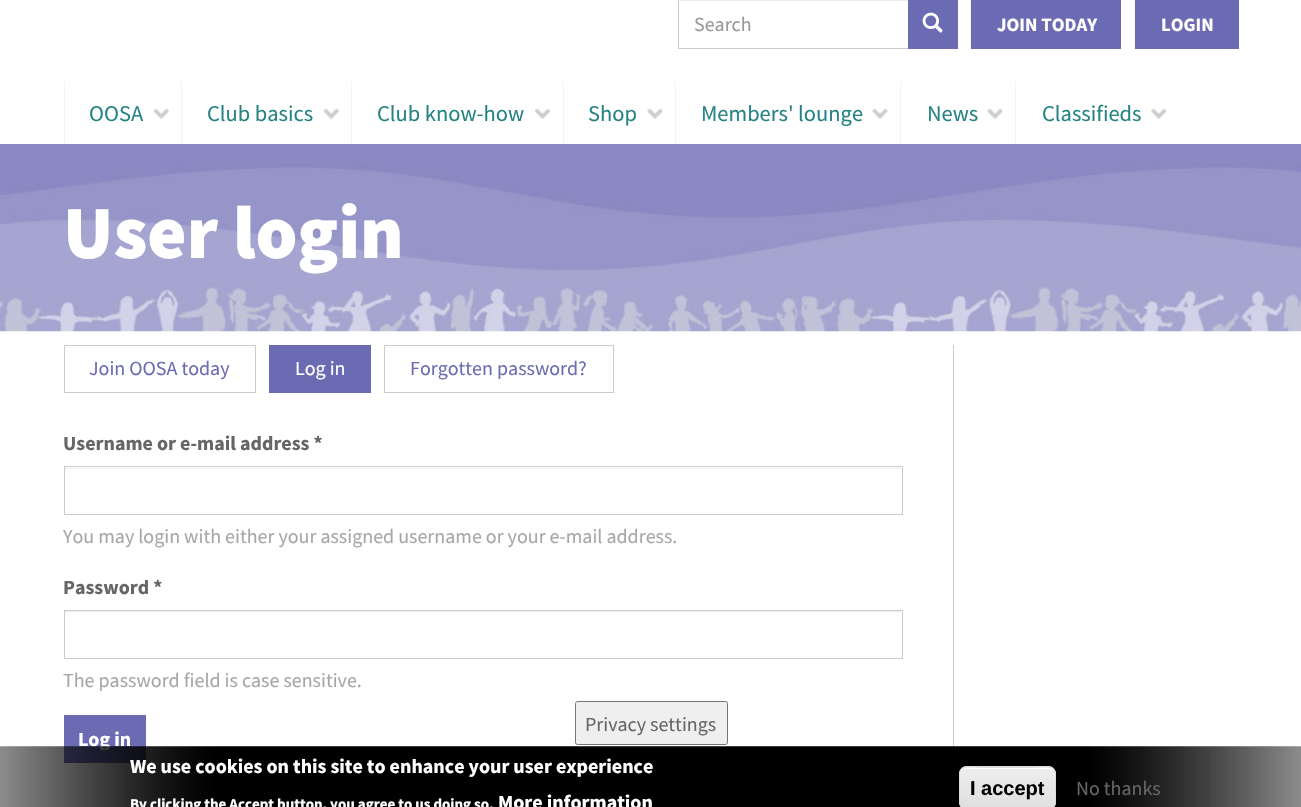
#include "include/core/SkBlurTypes.h"
#include "include/core/SkCanvas.h"
#include "include/core/SkData.h"
#include "include/core/SkFont.h"
#include "include/core/SkFontMgr.h"
#include "include/core/SkImage.h"
#include "include/core/SkMaskFilter.h"
#include "include/core/SkPaint.h"
#include "include/core/SkPathBuilder.h"
#include "include/core/SkTextBlob.h"
#include "include/effects/SkDashPathEffect.h"
#include "include/effects/SkGradientShader.h"
#include "include/utils/SkParsePath.h"

extern sk_sp<SkFontMgr> fontMgr;

static SkFont font(const char* family, int weight, float size, bool italic = false) {
    SkFontStyle style(weight, SkFontStyle::kNormal_Width,
        italic ? SkFontStyle::kItalic_Slant : SkFontStyle::kUpright_Slant);
    SkFont result(fontMgr->matchFamilyStyle(family, style), size);
    result.setSubpixel(true);
    return result;
}

static void drawLabel(SkCanvas* canvas, const char* s, float x, float y, const SkFont& font, SkColor color) {
    SkPaint ink(SkColor4f::FromColor(color));
    ink.setAntiAlias(true);
    canvas->drawString(s, x, y, font, ink);
}

static void fillRect(SkCanvas* canvas, float x, float y, float w, float h, SkColor color) {
    SkPaint ink(SkColor4f::FromColor(color));
    ink.setAntiAlias(true);
    canvas->drawRect(SkRect::MakeXYWH(x, y, w, h), ink);
}

static void drawPhoto(SkCanvas* canvas, const char* path, float x, float y, float w, float h) {
    auto image = SkImages::DeferredFromEncodedData(SkData::MakeFromFileName(path));
    canvas->drawImageRect(image, SkRect::MakeXYWH(x, y, w, h), SkSamplingOptions());
}

static SkPath parsePath(const char* data, bool evenOdd = false) {
    SkPath result = *SkParsePath::FromSVGString(data);
    if (evenOdd) result.setFillType(SkPathFillType::kEvenOdd);
    return result;
}

void draw(SkCanvas* canvas) {
    SkPaint paint;
    paint.setAntiAlias(true);
    canvas->clear(0xFFFFFFFF);
    fillRect(canvas, 679, 0, 229, 1, 0xFFECECEC);
    paint.setStroke(true);
    paint.setStrokeWidth(1);
    paint.setColor(0xFFCCCCCC);
    canvas->drawRect(SkRect::MakeXYWH(678.5f, -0.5f, 230, 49), paint);
    SkFont font1 = font("Source Sans Pro", 400, 20);
    drawLabel(canvas, "Search", 694, 31, font1, 0xFF999999);
    fillRect(canvas, 908, 0, 50, 49, 0xFF6B6BB3);
    drawPhoto(canvas, "assets/img1.png", 922, 12, 21, 21);
    fillRect(canvas, 971, 0, 150, 49, 0xFF6B6BB3);
    fillRect(canvas, 970, 0, 1, 49, 0xFFF5F5F5);
    SkFont font2 = font("Source Sans Pro", 700, 18.75f);
    drawLabel(canvas, "JOIN TODAY", 997, 31, font2, 0xFFFFFFFF);
    fillRect(canvas, 1135, 0, 104, 49, 0xFF6B6BB3);
    fillRect(canvas, 1134, 0, 1, 49, 0xFFF5F5F5);
    drawLabel(canvas, "LOGIN", 1161, 31, font2, 0xFFFFFFFF);
    drawPhoto(canvas, "assets/img2.png", 153, 108, 16, 11);
    fillRect(canvas, 64, 81, 1, 63, 0xFFF5F5F5);
    SkFont font3 = font("Source Sans Pro", 400, 22.5f);
    drawLabel(canvas, "OOSA", 89, 121, font3, 0xFF258384);
    drawPhoto(canvas, "assets/img3.png", 323, 108, 16, 11);
    fillRect(canvas, 181, 81, 1, 63, 0xFFF5F5F5);
    drawLabel(canvas, "Club basics", 207, 121, font3, 0xFF258384);
    drawPhoto(canvas, "assets/img4.png", 535, 108, 15, 11);
    fillRect(canvas, 351, 81, 1, 63, 0xFFF5F5F5);
    drawLabel(canvas, "Club know-how", 377, 121, font3, 0xFF258384);
    drawPhoto(canvas, "assets/img5.png", 647, 108, 16, 11);
    fillRect(canvas, 563, 81, 1, 63, 0xFFF5F5F5);
    drawLabel(canvas, "Shop", 588, 121, font3, 0xFF258384);
    drawPhoto(canvas, "assets/img5.png", 872, 108, 16, 11);
    fillRect(canvas, 675, 81, 1, 63, 0xFFF5F5F5);
    drawLabel(canvas, "Members' lounge", 701, 121, font3, 0xFF258384);
    drawPhoto(canvas, "assets/img6.png", 987, 108, 16, 11);
    fillRect(canvas, 900, 81, 1, 63, 0xFFF5F5F5);
    drawLabel(canvas, "News", 927, 121, font3, 0xFF258384);
    drawPhoto(canvas, "assets/img7.png", 1151, 108, 16, 11);
    fillRect(canvas, 1015, 81, 1, 63, 0xFFF5F5F5);
    drawLabel(canvas, "Classifieds", 1042, 121, font3, 0xFF258384);
    drawPhoto(canvas, "assets/img8.png", 0, 144, 1301, 188);
    SkFont font4 = font("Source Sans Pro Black", 900, 75);
    drawLabel(canvas, "User login", 63, 258, font4, 0xFFFFFFFF);
    fillRect(canvas, 953, 345, 1, 402, 0xFFCCCCCC);
    canvas->drawRect(SkRect::MakeXYWH(64.5f, 345.5f, 191, 47), paint);
    drawLabel(canvas, "Join OOSA today", 89, 375, font1, 0xFF6B6BB3);
    fillRect(canvas, 269, 345, 102, 48, 0xFF6B6BB3);
    drawLabel(canvas, "Log in", 295, 375, font1, 0xFFFFFFFF);
    canvas->drawRect(SkRect::MakeXYWH(384.5f, 345.5f, 229, 47), paint);
    drawLabel(canvas, "Forgotten password?", 410, 375, font1, 0xFF6B6BB3);
    SkFont font5 = font("Source Sans Pro", 700, 20);
    drawLabel(canvas, "Username or e-mail address *", 63, 450, font5, 0xFF666666);
    fillRect(canvas, 65, 468, 836, 1, 0xFFECECEC);
    canvas->drawRect(SkRect::MakeXYWH(64.5f, 466.5f, 838, 48), paint);
    drawLabel(canvas, "You may login with either your assigned username or your e-mail address.", 63, 543, font1, 0xFFA6A6A6);
    drawLabel(canvas, "Password *", 63, 594, font5, 0xFF666666);
    fillRect(canvas, 65, 611, 836, 1, 0xFFECECEC);
    canvas->drawRect(SkRect::MakeXYWH(64.5f, 610.5f, 838, 48), paint);
    drawLabel(canvas, "The password field is case sensitive.", 63, 687, font1, 0xFFA6A6A6);
    fillRect(canvas, 64, 715, 82, 48, 0xFF6B6BB3);
    drawLabel(canvas, "Log in", 78, 746, font5, 0xFFFFFFFF);
    drawPhoto(canvas, "assets/img9.png", 0, 746, 1301, 61);
    paint.setStroke(false);
    paint.setColor(0xFFEFEFEF);
    canvas->drawRoundRect(SkRect::MakeXYWH(575.5f, 701.5f, 152, 43), 2, 2, paint);
    paint.setStroke(true);
    paint.setColor(0xFF767676);
    canvas->drawRoundRect(SkRect::MakeXYWH(575.5f, 701.5f, 152, 43), 2, 2, paint);
    drawLabel(canvas, "Privacy settings", 585, 731, font1, 0xFF666666);
    drawLabel(canvas, "We use cookies on this site to enhance your user experience", 130, 773, font5, 0xFFFFFFFF);
    SkFont font6 = font("Source Sans Pro", 700, 15);
    drawLabel(canvas, "By clicking the Accept button, you agree to us doing so.", 130, 809, font6, 0xFFFFFFFF);
    drawLabel(canvas, "More information", 498, 809, font5, 0xFFFFFFFF);
    canvas->save();
    canvas->clipPath(parsePath("M967 766H1048C1052.5 766 1056 769.5 1056 774V802C1056 806.5 1052.5 810 1048 810H967C962.5 810 959 806.5 959 802V774C959 769.5 962.5 766 967 766Z"), true);
    paint.setStroke(false);
    {
        const SkColor colors[] = {0xFFEDEDED, 0xFFDFDFDF};
        const float stops[] = {0.05f, 1};
        const SkPoint ends[] = {{1008, 726}, {1008, 768}};
        paint.setShader(SkGradientShader::MakeLinear(ends, colors, stops, 2, SkTileMode::kClamp));
        paint.setAlpha(255);
    }
    canvas->drawRect(SkRect::MakeXYWH(959, 766, 97, 2), paint);
    {
        const SkColor colors[] = {0xFFEDEDED, 0xFFDFDFDF};
        const float stops[] = {0.05f, 1};
        const SkPoint ends[] = {{1008, 768}, {1008, 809}};
        paint.setShader(SkGradientShader::MakeLinear(ends, colors, stops, 2, SkTileMode::kClamp));
        paint.setAlpha(255);
    }
    canvas->drawRect(SkRect::MakeXYWH(959, 768, 97, 39), paint);
    canvas->restore();
    paint.setShader(nullptr);
    paint.setColor(0xFFFFFFFF);
    canvas->drawPath(parsePath("M966 769H1049C1052 769 1055 772 1055 775C1055 765 1042 768 1035 768H980C973 768 960 765 960 775C960 772 963 769 966 769Z"), paint);
    paint.setStroke(true);
    paint.setColor(0xFFDCDCDC);
    canvas->drawRoundRect(SkRect::MakeXYWH(959.5f, 766.5f, 96, 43), 7.5f, 7.5f, paint);
    SkFont font7 = font("Liberation Sans", 700, 20);
    drawLabel(canvas, "I accept", 970, 795, font7, 0xFF000000);
    drawLabel(canvas, "No thanks", 1076, 795, font1, 0xFF666666);
}
